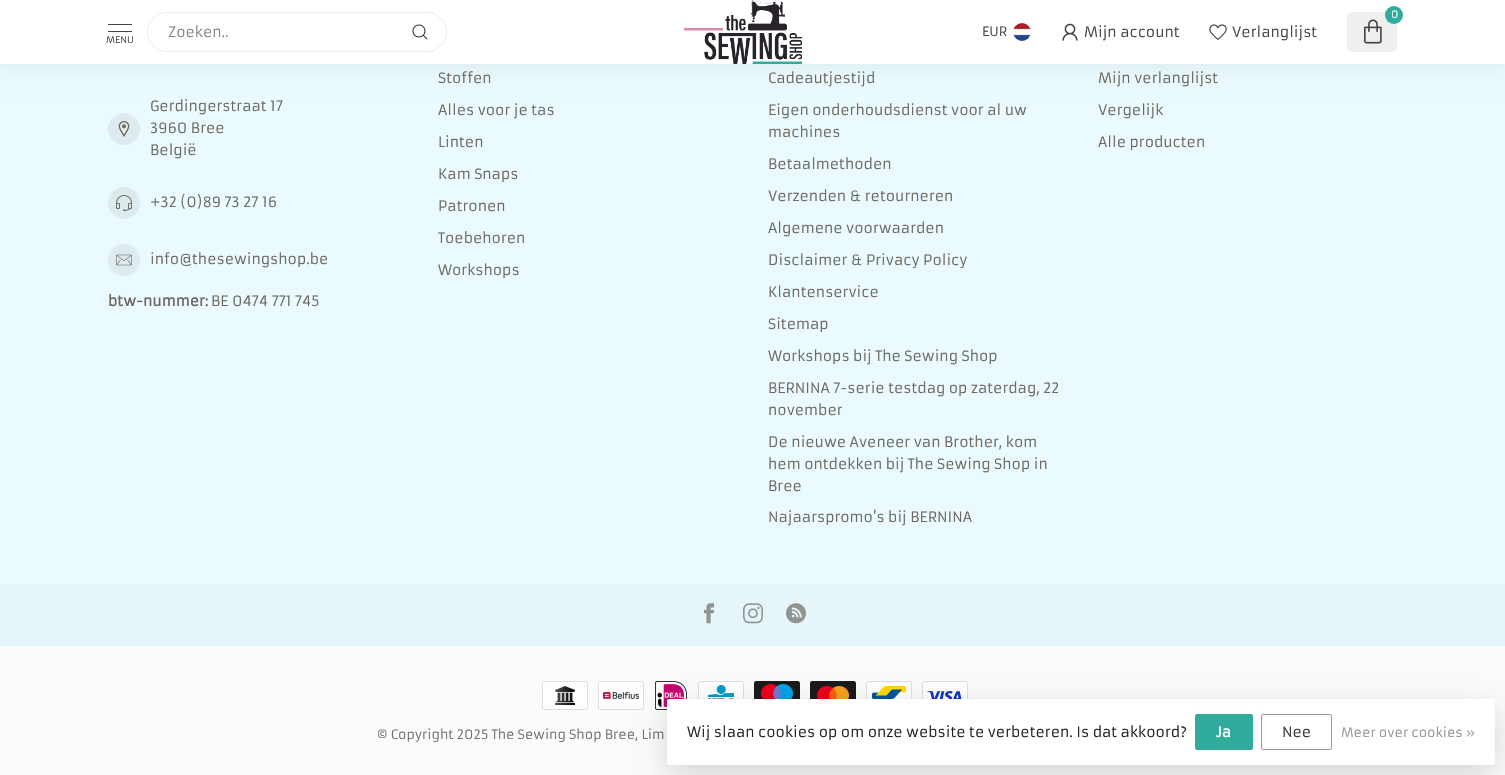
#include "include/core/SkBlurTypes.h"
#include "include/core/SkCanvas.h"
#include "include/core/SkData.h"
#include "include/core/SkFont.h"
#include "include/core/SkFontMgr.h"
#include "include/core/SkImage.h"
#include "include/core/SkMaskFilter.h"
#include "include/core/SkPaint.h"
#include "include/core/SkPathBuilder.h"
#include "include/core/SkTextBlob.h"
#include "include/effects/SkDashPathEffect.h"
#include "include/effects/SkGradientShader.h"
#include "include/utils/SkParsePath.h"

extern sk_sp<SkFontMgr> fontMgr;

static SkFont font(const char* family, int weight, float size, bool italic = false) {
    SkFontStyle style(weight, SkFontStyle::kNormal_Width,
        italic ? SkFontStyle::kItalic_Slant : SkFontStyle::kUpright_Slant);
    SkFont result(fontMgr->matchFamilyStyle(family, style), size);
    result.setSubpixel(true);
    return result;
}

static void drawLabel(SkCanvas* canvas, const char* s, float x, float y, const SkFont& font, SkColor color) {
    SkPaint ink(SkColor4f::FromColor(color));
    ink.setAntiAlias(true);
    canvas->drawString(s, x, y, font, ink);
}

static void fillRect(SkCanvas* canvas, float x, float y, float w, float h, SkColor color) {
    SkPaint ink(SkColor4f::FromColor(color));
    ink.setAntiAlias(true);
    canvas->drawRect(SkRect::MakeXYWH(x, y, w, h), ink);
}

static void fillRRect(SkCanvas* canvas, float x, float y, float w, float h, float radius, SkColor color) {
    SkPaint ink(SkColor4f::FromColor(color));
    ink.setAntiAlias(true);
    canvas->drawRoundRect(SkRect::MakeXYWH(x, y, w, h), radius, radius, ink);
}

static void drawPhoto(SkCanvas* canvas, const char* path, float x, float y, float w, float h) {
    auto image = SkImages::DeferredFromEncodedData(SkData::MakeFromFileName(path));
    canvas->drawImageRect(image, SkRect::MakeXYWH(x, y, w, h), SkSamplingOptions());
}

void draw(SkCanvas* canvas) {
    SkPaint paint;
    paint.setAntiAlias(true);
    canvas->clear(0xFFEAFAFF);
    paint.setColor(0x14000000);
    paint.setMaskFilter(SkMaskFilter::MakeBlur(kNormal_SkBlurStyle, 11));
    canvas->drawRect(SkRect::MakeXYWH(0, -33, 1505, 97), paint);
    paint.setMaskFilter(nullptr);
    fillRect(canvas, 0, 0, 1505, 64, 0xFFFFFFFF);
    paint.setStroke(true);
    paint.setStrokeWidth(1);
    paint.setColor(0xFFECECEC);
    canvas->drawRoundRect(SkRect::MakeXYWH(147.5f, 12.5f, 299, 39), 19.5f, 19.5f, paint);
    SkFont font1 = font("Armata", 400, 14);
    drawLabel(canvas, "Zoeken..", 168, 37, font1, 0xFF858585);
    drawPhoto(canvas, "assets/img1.png", 412, 24, 16, 16);
    fillRect(canvas, 108, 24, 24, 1, 0xFF444444);
    fillRect(canvas, 108, 31, 24, 1, 0xFF444444);
    SkFont font2 = font("Armata", 400, 9);
    drawLabel(canvas, "MENU", 106, 43, font2, 0xFF444444);
    drawPhoto(canvas, "assets/img2.png", 683, 0, 119, 64);
    fillRRect(canvas, 1347, 12, 50, 40, 5, 0xFFEFEFEF);
    paint.setStroke(false);
    paint.setColor(0xFF30AC9C);
    canvas->drawCircle(1394, 15, 9, paint);
    SkFont font3 = font("Armata", 400, 10);
    drawLabel(canvas, "0", 1391, 18, font3, 0xFFFFFFFF);
    drawPhoto(canvas, "assets/img3.png", 1364, 19, 18, 25);
    SkFont font4 = font("Armata", 400, 12.6f);
    drawLabel(canvas, "EUR", 982, 36, font4, 0xFF444444);
    drawPhoto(canvas, "assets/img4.png", 1013, 23, 18, 18);
    drawPhoto(canvas, "assets/img5.png", 1062, 23, 16, 18);
    drawLabel(canvas, "Mijn account", 1084, 37, font1, 0xFF444444);
    drawPhoto(canvas, "assets/img6.png", 1209, 24, 18, 16);
    drawLabel(canvas, "Verlanglijst", 1232, 37, font1, 0xFF444444);
    paint.setColor(0xFFDDEBEF);
    canvas->drawCircle(124, 129, 16, paint);
    drawPhoto(canvas, "assets/img7.png", 118, 121, 12, 16);
    drawLabel(canvas, "Gerdingerstraat 17", 150, 111, font1, 0xFF6C6860);
    drawLabel(canvas, "3960 Bree", 150, 133, font1, 0xFF6C6860);
    drawLabel(canvas, "België", 150, 155, font1, 0xFF6C6860);
    canvas->drawCircle(124, 203, 16, paint);
    drawPhoto(canvas, "assets/img8.png", 116, 195, 16, 16);
    drawLabel(canvas, "+32 (0)89 73 27 16", 150, 207, font1, 0xFF6C6860);
    canvas->drawCircle(124, 260, 16, paint);
    drawPhoto(canvas, "assets/img9.png", 116, 254, 16, 12);
    drawLabel(canvas, "info@thesewingshop.be", 150, 264, font1, 0xFF6C6860);
    SkFont font5 = font("Armata", 700, 14);
    drawLabel(canvas, "btw-nummer:", 108, 306, font5, 0xFF6C6860);
    drawLabel(canvas, "BE 0474 771 745", 211, 306, font1, 0xFF6C6860);
    drawLabel(canvas, "Stoffen", 438, 83, font1, 0xFF6C6860);
    drawLabel(canvas, "Alles voor je tas", 438, 115, font1, 0xFF6C6860);
    drawLabel(canvas, "Linten", 438, 147, font1, 0xFF6C6860);
    drawLabel(canvas, "Kam Snaps", 438, 179, font1, 0xFF6C6860);
    drawLabel(canvas, "Patronen", 438, 211, font1, 0xFF6C6860);
    drawLabel(canvas, "Toebehoren", 438, 243, font1, 0xFF6C6860);
    drawLabel(canvas, "Workshops", 438, 275, font1, 0xFF6C6860);
    drawLabel(canvas, "Cadeautjestijd", 768, 83, font1, 0xFF6C6860);
    drawLabel(canvas, "Eigen onderhoudsdienst voor al uw", 768, 115, font1, 0xFF6C6860);
    drawLabel(canvas, "machines", 768, 137, font1, 0xFF6C6860);
    drawLabel(canvas, "Betaalmethoden", 768, 169, font1, 0xFF6C6860);
    drawLabel(canvas, "Verzenden & retourneren", 768, 201, font1, 0xFF6C6860);
    drawLabel(canvas, "Algemene voorwaarden", 768, 233, font1, 0xFF6C6860);
    drawLabel(canvas, "Disclaimer & Privacy Policy", 768, 265, font1, 0xFF6C6860);
    drawLabel(canvas, "Klantenservice", 768, 297, font1, 0xFF6C6860);
    drawLabel(canvas, "Sitemap", 768, 329, font1, 0xFF6C6860);
    drawLabel(canvas, "Workshops bij The Sewing Shop", 768, 361, font1, 0xFF6C6860);
    drawLabel(canvas, "BERNINA 7-serie testdag op zaterdag, 22", 768, 393, font1, 0xFF6C6860);
    drawLabel(canvas, "november", 768, 415, font1, 0xFF6C6860);
    drawLabel(canvas, "De nieuwe Aveneer van Brother, kom", 768, 447, font1, 0xFF6C6860);
    drawLabel(canvas, "hem ontdekken bij The Sewing Shop in", 768, 469, font1, 0xFF6C6860);
    drawLabel(canvas, "Bree", 768, 491, font1, 0xFF6C6860);
    drawLabel(canvas, "Najaarspromo's bij BERNINA", 768, 522, font1, 0xFF6C6860);
    drawLabel(canvas, "Mijn verlanglijst", 1098, 83, font1, 0xFF6C6860);
    drawLabel(canvas, "Vergelijk", 1098, 115, font1, 0xFF6C6860);
    drawLabel(canvas, "Alle producten", 1098, 147, font1, 0xFF6C6860);
    fillRect(canvas, 0, 584, 1505, 62, 0xFFE6F5FA);
    drawPhoto(canvas, "assets/img10.png", 704, 603, 10, 21);
    drawPhoto(canvas, "assets/img11.png", 743, 603, 20, 21);
    drawPhoto(canvas, "assets/img12.png", 786, 603, 20, 21);
    fillRect(canvas, 0, 646, 1505, 129, 0xFFFBFBFB);
    drawPhoto(canvas, "assets/img13.png", 542, 681, 46, 29);
    drawPhoto(canvas, "assets/img14.png", 598, 681, 46, 29);
    drawPhoto(canvas, "assets/img15.png", 655, 681, 32, 29);
    drawPhoto(canvas, "assets/img16.png", 698, 681, 46, 18);
    drawPhoto(canvas, "assets/img17.png", 754, 681, 46, 18);
    drawPhoto(canvas, "assets/img18.png", 810, 681, 46, 18);
    drawPhoto(canvas, "assets/img19.png", 866, 681, 46, 18);
    drawPhoto(canvas, "assets/img20.png", 922, 681, 46, 18);
    drawLabel(canvas, "© Copyright 2025 The Sewing Shop Bree, Lim", 377, 739, font4, 0xFF6F6F6F);
    paint.setColor(0x26000000);
    paint.setMaskFilter(SkMaskFilter::MakeBlur(kNormal_SkBlurStyle, 15));
    canvas->drawRoundRect(SkRect::MakeXYWH(667, 709, 828, 66), 2, 2, paint);
    paint.setMaskFilter(nullptr);
    fillRRect(canvas, 667, 699, 828, 66, 2, 0xFFFFFFFF);
    drawLabel(canvas, "Wij slaan cookies op om onze website te verbeteren. Is dat akkoord?", 687, 737, font1, 0xFF222222);
    fillRRect(canvas, 1195, 714, 58, 36, 2, 0xFF30AC9C);
    drawLabel(canvas, "Ja", 1216, 737, font5, 0xFFFFFFFF);
    paint.setStroke(true);
    paint.setColor(0xFF999999);
    canvas->drawRoundRect(SkRect::MakeXYWH(1261.5f, 714.5f, 70, 35), 1.5f, 1.5f, paint);
    drawLabel(canvas, "Nee", 1282, 737, font1, 0xFF333333);
    drawLabel(canvas, "Meer over cookies »", 1341, 737, font4, 0xFF949494);
}
